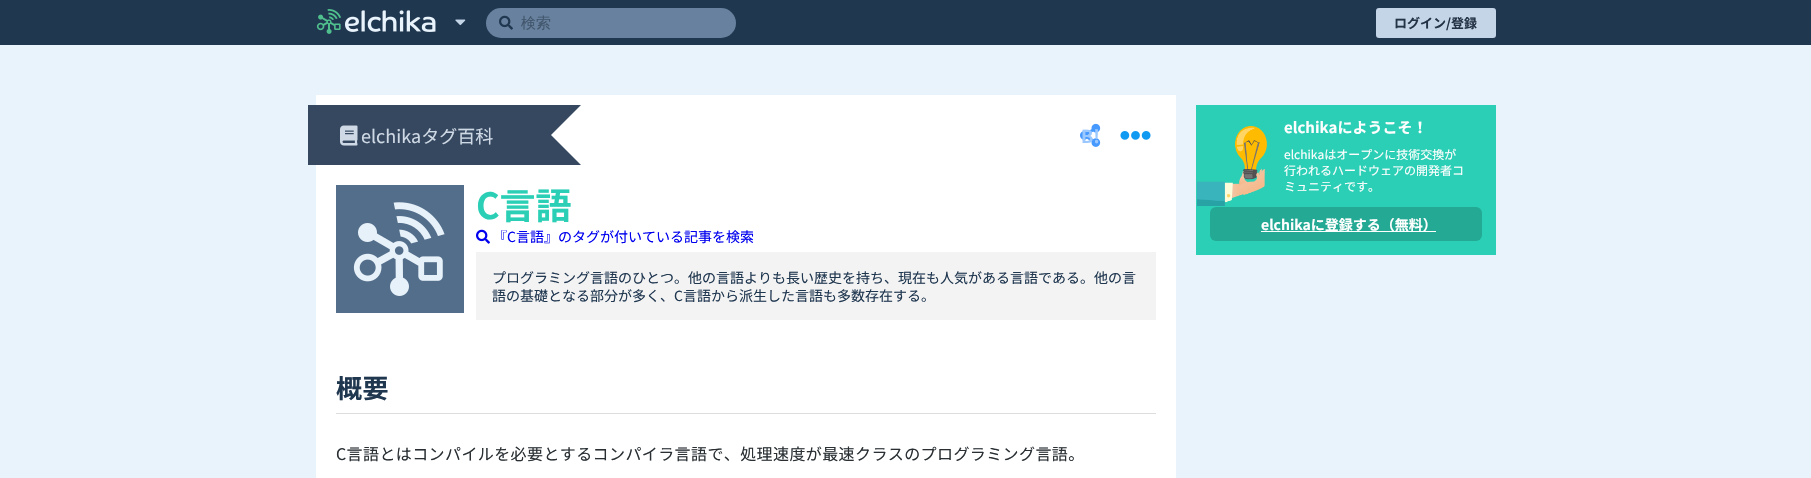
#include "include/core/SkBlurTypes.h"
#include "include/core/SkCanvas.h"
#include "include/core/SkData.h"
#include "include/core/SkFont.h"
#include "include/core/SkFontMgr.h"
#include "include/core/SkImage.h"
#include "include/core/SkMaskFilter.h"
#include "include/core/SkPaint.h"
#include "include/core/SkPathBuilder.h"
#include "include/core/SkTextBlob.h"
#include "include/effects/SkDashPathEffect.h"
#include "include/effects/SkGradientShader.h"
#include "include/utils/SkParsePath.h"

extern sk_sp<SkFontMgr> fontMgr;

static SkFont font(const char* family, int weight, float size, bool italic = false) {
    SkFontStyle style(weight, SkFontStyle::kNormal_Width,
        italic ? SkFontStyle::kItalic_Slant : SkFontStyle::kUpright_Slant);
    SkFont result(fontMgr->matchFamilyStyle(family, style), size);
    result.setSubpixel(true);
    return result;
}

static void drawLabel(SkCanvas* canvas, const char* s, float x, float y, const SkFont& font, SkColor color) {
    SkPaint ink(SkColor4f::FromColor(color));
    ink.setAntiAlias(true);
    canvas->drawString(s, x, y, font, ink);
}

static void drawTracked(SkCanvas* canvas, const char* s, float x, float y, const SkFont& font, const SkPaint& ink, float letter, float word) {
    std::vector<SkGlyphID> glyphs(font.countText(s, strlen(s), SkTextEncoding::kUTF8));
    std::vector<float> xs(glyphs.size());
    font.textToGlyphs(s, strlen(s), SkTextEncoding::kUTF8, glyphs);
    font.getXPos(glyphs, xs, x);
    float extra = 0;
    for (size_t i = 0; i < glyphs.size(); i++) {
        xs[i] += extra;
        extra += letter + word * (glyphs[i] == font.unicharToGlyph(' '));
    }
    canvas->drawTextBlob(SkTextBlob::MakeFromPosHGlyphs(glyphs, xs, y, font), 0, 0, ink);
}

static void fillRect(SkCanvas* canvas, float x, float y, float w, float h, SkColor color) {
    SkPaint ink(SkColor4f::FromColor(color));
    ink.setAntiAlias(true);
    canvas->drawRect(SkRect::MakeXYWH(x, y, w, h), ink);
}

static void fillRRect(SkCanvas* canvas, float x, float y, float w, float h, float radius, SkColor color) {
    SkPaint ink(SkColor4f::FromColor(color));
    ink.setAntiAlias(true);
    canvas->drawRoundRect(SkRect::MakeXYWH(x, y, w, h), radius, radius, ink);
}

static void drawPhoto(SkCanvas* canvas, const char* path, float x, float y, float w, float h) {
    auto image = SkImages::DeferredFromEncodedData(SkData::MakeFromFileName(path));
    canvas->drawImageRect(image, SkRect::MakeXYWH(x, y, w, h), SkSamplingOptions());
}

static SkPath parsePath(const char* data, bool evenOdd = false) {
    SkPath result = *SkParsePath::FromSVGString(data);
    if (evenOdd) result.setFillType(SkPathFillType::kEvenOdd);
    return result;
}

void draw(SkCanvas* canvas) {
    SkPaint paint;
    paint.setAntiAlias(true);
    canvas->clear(0xFFE8F3FB);
    fillRect(canvas, 0, 0, 1811, 45, 0xFF203750);
    drawPhoto(canvas, "assets/img1.png", 316, 9, 120, 25);
    drawPhoto(canvas, "assets/img2.png", 455, 19, 11, 7);
    fillRRect(canvas, 486, 8, 250, 30, 15, 0xFF68819E);
    drawPhoto(canvas, "assets/img3.png", 499, 15, 14, 15);
    SkFont font1 = font("WenQuanYi Zen Hei", 500, 15);
    drawLabel(canvas, "検索", 521, 28, font1, 0xFF41566C);
    fillRRect(canvas, 1376, 8, 120, 30, 3, 0xFFC4D5E8);
    SkFont font2 = font("Noto Sans JP", 700, 13);
    drawLabel(canvas, "ログイン/登録", 1394, 28, font2, 0xFF243446);
    fillRect(canvas, 316, 95, 860, 383, 0xFFFFFFFF);
    fillRect(canvas, 308, 105, 273, 60, 0xFF354860);
    drawPhoto(canvas, "assets/img4.png", 340, 125, 18, 21);
    SkFont font3 = font("Noto Sans JP", 400, 18);
    drawLabel(canvas, "elchikaタグ百科", 361, 143, font3, 0xFFCFD9E5);
    paint.setColor(0xFFFFFFFF);
    canvas->drawPath(parsePath("M581 105V165L551 135Z"), paint);
    drawPhoto(canvas, "assets/img5.png", 1080, 123, 21, 24);
    SkFont font4 = font("Noto Sans JP", 700, 18);
    drawLabel(canvas, "B!", 1081, 143, font4, 0xFF9BC8FF);
    drawPhoto(canvas, "assets/img6.png", 1120, 131, 31, 9);
    drawPhoto(canvas, "assets/img7.png", 336, 185, 128, 128);
    SkFont font5 = font("Noto Sans JP", 700, 36);
    drawLabel(canvas, "C言語", 476, 219, font5, 0xFF2BCFB5);
    drawPhoto(canvas, "assets/img8.png", 476, 229, 14, 15);
    SkFont font6 = font("Noto Sans JP", 400, 14);
    drawLabel(canvas, "『C言語』のタグが付いている記事を検索", 493, 242, font6, 0xFF0000EE);
    fillRect(canvas, 476, 252, 680, 68, 0xFFF3F3F3);
    drawLabel(canvas, "プログラミング言語のひとつ。他の言語よりも長い歴史を持ち、現在も人気がある言語である。他の言", 492, 283, font6, 0xFF203750);
    drawLabel(canvas, "語の基礎となる部分が多く、C言語から派生した言語も多数存在する。", 492, 301, font6, 0xFF203750);
    fillRect(canvas, 336, 413, 820, 1, 0xFFDDDDDD);
    SkFont font7 = font("Noto Sans JP", 700, 26);
    paint.setColor(0xFF203750);
    drawTracked(canvas, "概要", 336, 398, font7, paint, 0.4f, 0);
    SkFont font8 = font("Noto Sans JP", 400, 16);
    paint.setColor(0xFF292F33);
    drawTracked(canvas, "C言語とはコンパイルを必要とするコンパイラ言語で、処理速度が最速クラスのプログラミング言語。", 336, 460, font8, paint, 0.4f, 0);
    fillRect(canvas, 1196, 105, 300, 150, 0xFF2BCFB5);
    drawPhoto(canvas, "assets/img9.png", 1197, 126, 70, 80);
    SkFont font9 = font("Noto Sans JP", 700, 15);
    drawLabel(canvas, "elchikaにようこそ！", 1284, 133, font9, 0xFFFFFFFF);
    SkFont font10 = font("Noto Sans JP", 400, 12);
    drawLabel(canvas, "elchikaはオープンに技術交換が", 1284, 159, font10, 0xFFFFFFFF);
    drawLabel(canvas, "行われるハードウェアの開発者コ", 1284, 175, font10, 0xFFFFFFFF);
    drawLabel(canvas, "ミュニティです。", 1284, 191, font10, 0xFFFFFFFF);
    fillRRect(canvas, 1210, 207, 272, 34, 6, 0xFF23A994);
    fillRect(canvas, 1261, 231, 175, 1, 0xFFFFFFFF);
    SkFont font11 = font("Noto Sans JP", 700, 14);
    drawLabel(canvas, "elchikaに登録する（無料）", 1261, 230, font11, 0xFFFFFFFF);
}
